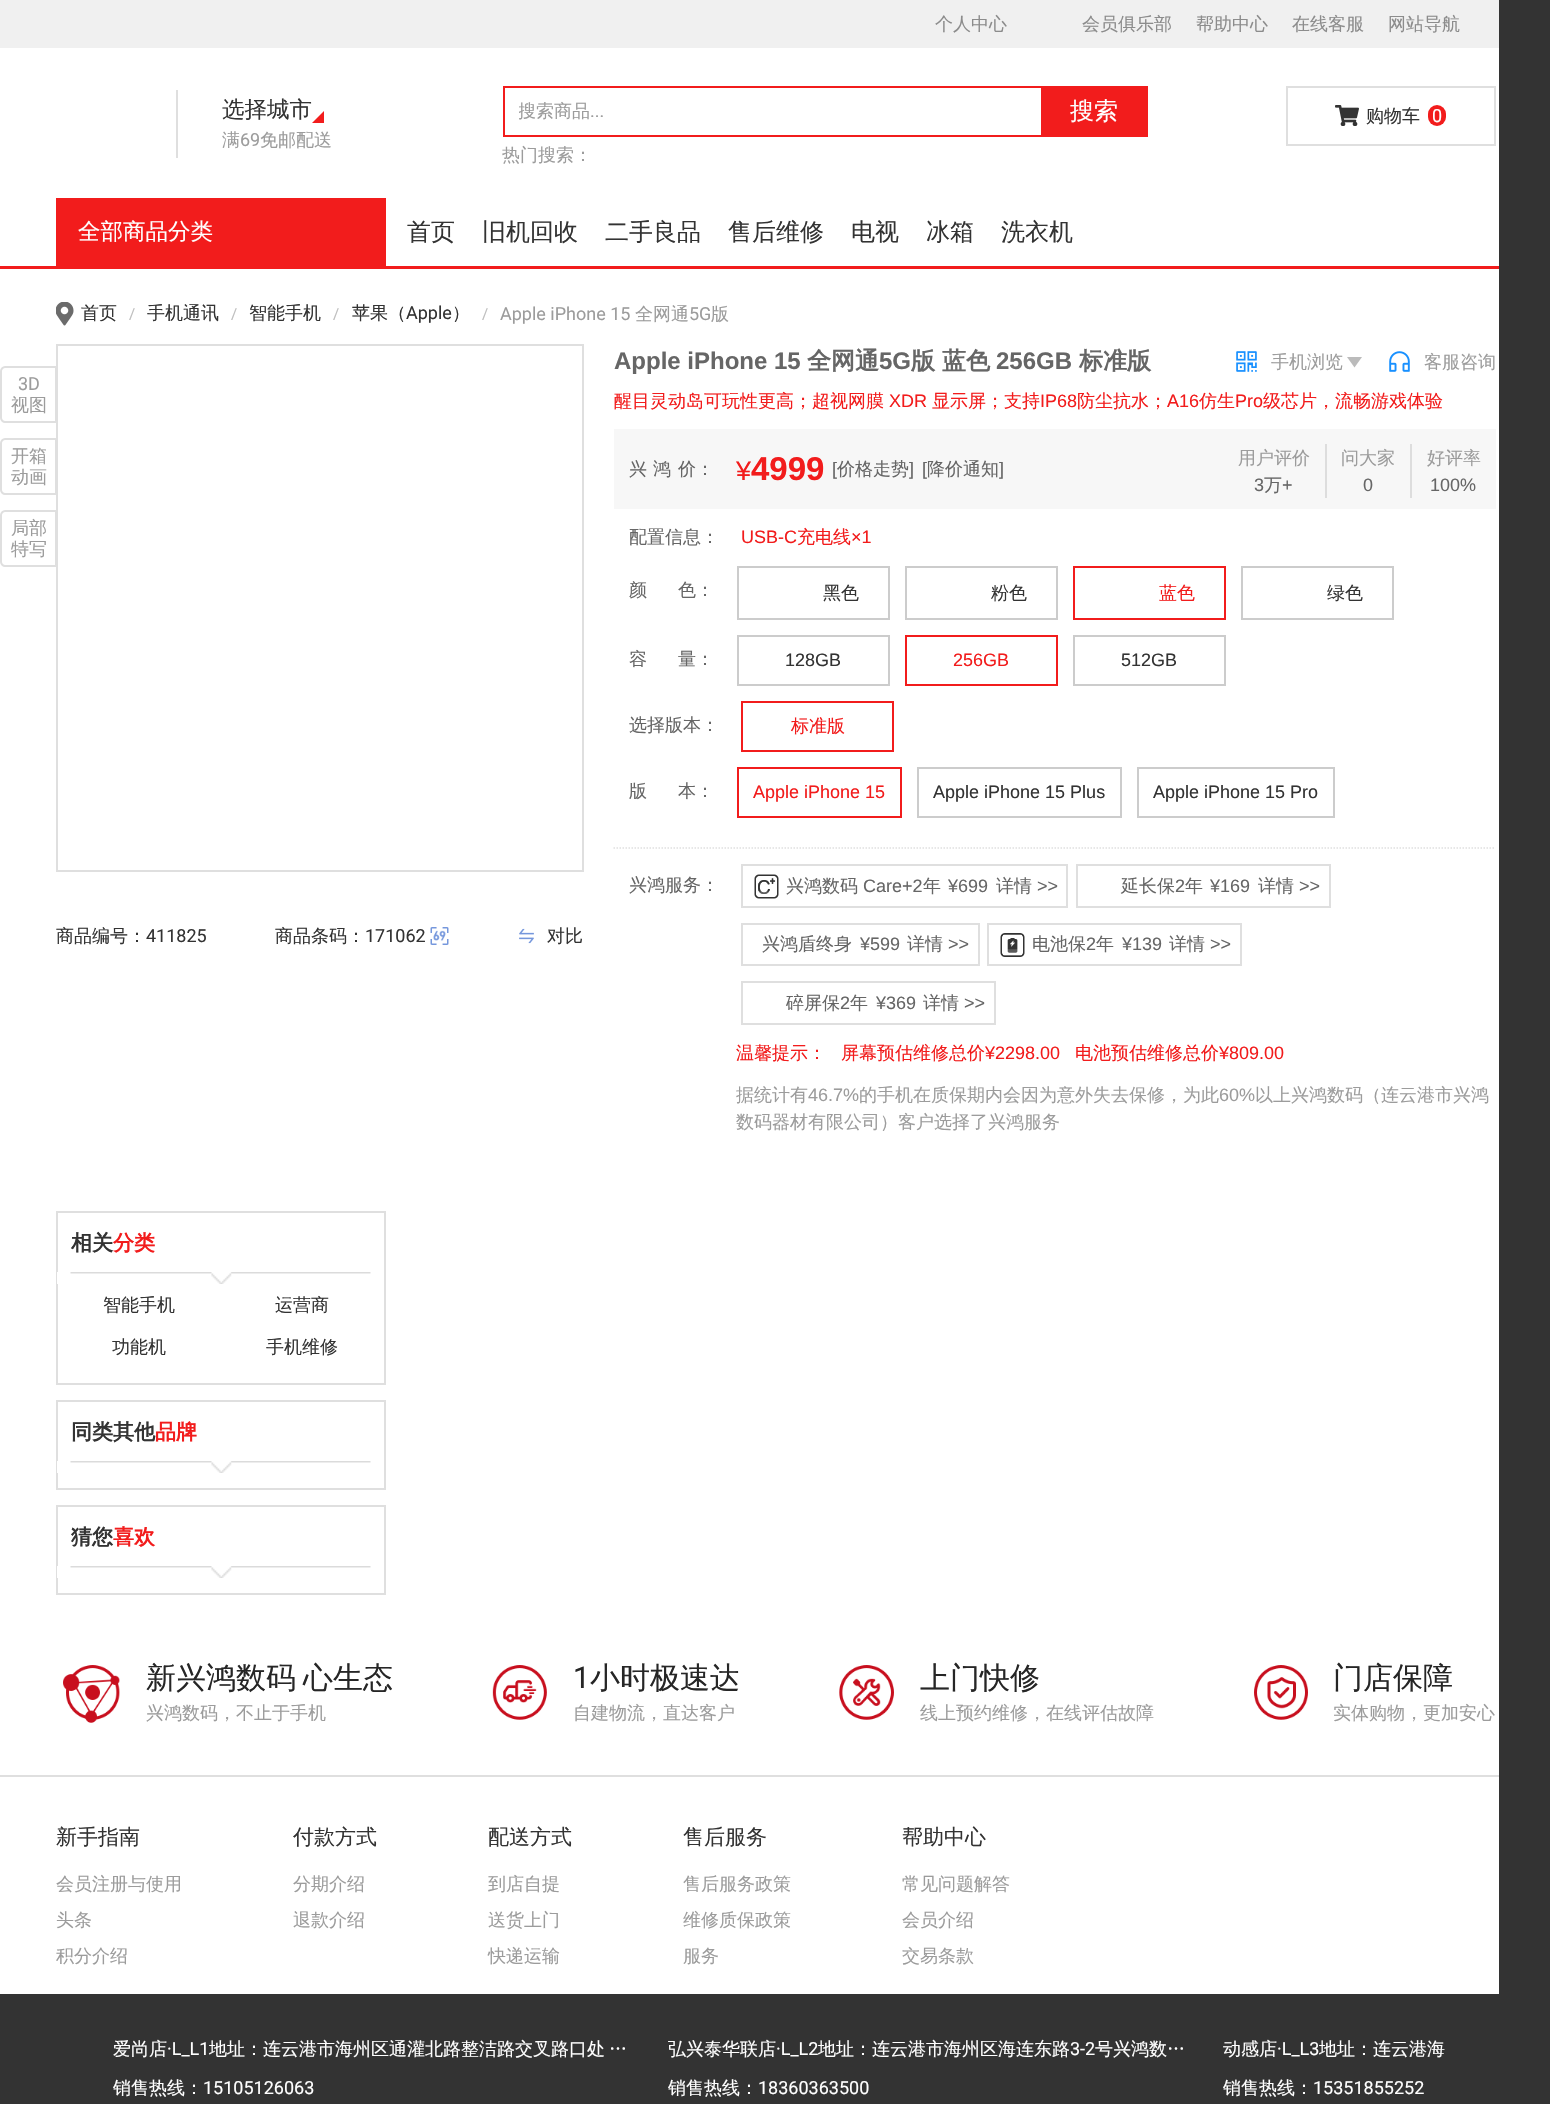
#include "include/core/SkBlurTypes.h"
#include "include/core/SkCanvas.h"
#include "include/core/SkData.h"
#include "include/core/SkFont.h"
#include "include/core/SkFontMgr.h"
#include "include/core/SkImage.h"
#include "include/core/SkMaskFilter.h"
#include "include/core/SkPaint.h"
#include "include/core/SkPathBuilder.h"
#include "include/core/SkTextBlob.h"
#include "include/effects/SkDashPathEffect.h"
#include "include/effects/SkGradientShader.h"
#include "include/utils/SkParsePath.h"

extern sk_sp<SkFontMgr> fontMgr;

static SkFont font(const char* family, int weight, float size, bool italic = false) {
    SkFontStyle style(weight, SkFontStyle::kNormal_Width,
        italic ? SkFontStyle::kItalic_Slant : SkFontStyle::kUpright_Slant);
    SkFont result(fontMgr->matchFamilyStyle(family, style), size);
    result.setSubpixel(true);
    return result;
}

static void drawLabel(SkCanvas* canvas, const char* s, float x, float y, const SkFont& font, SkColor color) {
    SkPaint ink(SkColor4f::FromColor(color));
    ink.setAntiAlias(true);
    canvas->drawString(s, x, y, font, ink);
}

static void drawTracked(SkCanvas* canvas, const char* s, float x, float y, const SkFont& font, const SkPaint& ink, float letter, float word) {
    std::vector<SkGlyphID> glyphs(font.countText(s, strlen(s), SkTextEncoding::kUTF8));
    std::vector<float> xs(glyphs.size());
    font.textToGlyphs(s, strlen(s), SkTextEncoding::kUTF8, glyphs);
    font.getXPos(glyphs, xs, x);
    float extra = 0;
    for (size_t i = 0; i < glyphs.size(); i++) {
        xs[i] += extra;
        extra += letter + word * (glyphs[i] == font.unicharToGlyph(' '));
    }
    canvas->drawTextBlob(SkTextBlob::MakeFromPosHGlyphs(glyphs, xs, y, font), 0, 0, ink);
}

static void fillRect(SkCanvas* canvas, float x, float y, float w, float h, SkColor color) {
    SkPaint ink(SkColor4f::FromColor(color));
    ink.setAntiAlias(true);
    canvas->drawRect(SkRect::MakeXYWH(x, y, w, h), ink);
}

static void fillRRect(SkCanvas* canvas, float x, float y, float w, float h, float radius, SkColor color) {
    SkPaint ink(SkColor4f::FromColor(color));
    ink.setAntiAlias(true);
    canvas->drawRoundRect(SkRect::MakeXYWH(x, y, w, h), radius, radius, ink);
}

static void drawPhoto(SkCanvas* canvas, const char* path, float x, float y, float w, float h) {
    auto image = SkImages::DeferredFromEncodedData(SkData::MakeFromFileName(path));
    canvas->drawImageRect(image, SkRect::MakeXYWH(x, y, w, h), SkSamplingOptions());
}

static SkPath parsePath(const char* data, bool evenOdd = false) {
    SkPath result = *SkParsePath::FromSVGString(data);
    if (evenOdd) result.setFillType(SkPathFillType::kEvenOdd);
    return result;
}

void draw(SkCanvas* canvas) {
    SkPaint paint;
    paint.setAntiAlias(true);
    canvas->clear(0xFFFFFFFF);
    fillRect(canvas, 0, 0, 1499, 48, 0xFFF0F0F0);
    SkFont font1 = font("WenQuanYi Zen Hei", 500, 18);
    drawLabel(canvas, "个人中心", 935, 30, font1, 0xFF8C8C8C);
    drawLabel(canvas, "会员俱乐部", 1082, 30, font1, 0xFF8C8C8C);
    drawLabel(canvas, "帮助中心", 1196, 30, font1, 0xFF8C8C8C);
    drawLabel(canvas, "在线客服", 1292, 30, font1, 0xFF8C8C8C);
    drawLabel(canvas, "网站导航", 1388, 30, font1, 0xFF8C8C8C);
    fillRect(canvas, 0, 266, 1499, 3, 0xFFF21C1C);
    fillRect(canvas, 176, 90, 2, 68, 0xFFDFDFDF);
    SkFont font2 = font("WenQuanYi Zen Hei", 500, 22.5f);
    drawLabel(canvas, "选择城市", 222, 117, font2, 0xFF333333);
    paint.setColor(0xFFF21C1C);
    canvas->drawPath(parsePath("M324 123H312L324 111Z"), paint);
    drawLabel(canvas, "满", 222, 146, font1, 0xFF9C9C9C);
    SkFont font3 = font("Roboto", 400, 18);
    drawLabel(canvas, "69", 240, 146, font3, 0xFF9C9C9C);
    drawLabel(canvas, "免邮配送", 260, 146, font1, 0xFF9C9C9C);
    paint.setStroke(true);
    paint.setStrokeWidth(2);
    canvas->drawRect(SkRect::MakeXYWH(504, 87, 538, 49), paint);
    canvas->save();
    canvas->clipRect(SkRect::MakeXYWH(519, 99, 507, 26));
    drawLabel(canvas, "搜索商品", 518, 117, font1, 0xFF9C9C9C);
    canvas->restore();
    drawLabel(canvas, "...", 590, 117, font3, 0xFF9C9C9C);
    fillRect(canvas, 1043, 86, 105, 51, 0xFFF21C1C);
    SkFont font4 = font("WenQuanYi Zen Hei", 500, 24);
    drawLabel(canvas, "搜索", 1070, 119, font4, 0xFFFFFFFF);
    drawLabel(canvas, "热门搜索：", 502, 161, font1, 0xFF9C9C9C);
    paint.setColor(0xFFDFDFDF);
    canvas->drawRect(SkRect::MakeXYWH(1287, 87, 208, 58), paint);
    drawPhoto(canvas, "assets/img1.png", 1335, 105, 24, 21);
    drawLabel(canvas, "购物车", 1366, 122, font1, 0xFF333333);
    fillRRect(canvas, 1428, 105, 18, 21, 9, 0xFFF21C1C);
    drawLabel(canvas, "0", 1432, 122, font3, 0xFFFFFFFF);
    fillRect(canvas, 56, 198, 330, 68, 0xFFF21C1C);
    drawLabel(canvas, "全部商品分类", 78, 239, font2, 0xFFFFFFFF);
    drawLabel(canvas, "首页", 407, 240, font4, 0xFF333333);
    drawLabel(canvas, "旧机回收", 482, 240, font4, 0xFF333333);
    drawLabel(canvas, "二手良品", 605, 240, font4, 0xFF333333);
    drawLabel(canvas, "售后维修", 728, 240, font4, 0xFF333333);
    drawLabel(canvas, "电视", 851, 240, font4, 0xFF333333);
    drawLabel(canvas, "冰箱", 926, 240, font4, 0xFF333333);
    drawLabel(canvas, "洗衣机", 1001, 240, font4, 0xFF333333);
    drawPhoto(canvas, "assets/img2.png", 56, 302, 18, 24);
    drawLabel(canvas, "首页", 81, 319, font1, 0xFF333333);
    SkFont font5 = font("Roboto", 400, 15);
    drawLabel(canvas, "/", 129, 319, font5, 0xFFBEBEBE);
    drawLabel(canvas, "手机通讯", 147, 319, font1, 0xFF333333);
    drawLabel(canvas, "/", 231, 319, font5, 0xFFBEBEBE);
    drawLabel(canvas, "智能手机", 249, 319, font1, 0xFF333333);
    drawLabel(canvas, "/", 333, 319, font5, 0xFFBEBEBE);
    drawLabel(canvas, "苹果（", 352, 319, font1, 0xFF333333);
    drawLabel(canvas, "Apple", 406, 319, font3, 0xFF333333);
    drawLabel(canvas, "）", 452, 319, font1, 0xFF333333);
    drawLabel(canvas, "/", 482, 319, font5, 0xFFBEBEBE);
    drawLabel(canvas, "Apple iPhone 15", 500, 320, font3, 0xFF9C9C9C);
    drawLabel(canvas, "全网通", 635, 320, font1, 0xFF9C9C9C);
    drawLabel(canvas, "5G", 689, 320, font3, 0xFF9C9C9C);
    drawLabel(canvas, "版", 711, 320, font1, 0xFF9C9C9C);
    canvas->drawRect(SkRect::MakeXYWH(57, 345, 526, 526), paint);
    canvas->drawPath(parsePath("M5 367H56V422H5C3 422 1 420 1 418V371C1 369 3 367 5 367Z"), paint);
    drawLabel(canvas, "3D", 18, 390, font3, 0xFF9C9C9C);
    drawLabel(canvas, "视图", 11, 411, font1, 0xFF9C9C9C);
    canvas->drawPath(parsePath("M5 439H56V494H5C3 494 1 492 1 490V443C1 441 3 439 5 439Z"), paint);
    drawLabel(canvas, "开箱", 11, 462, font1, 0xFF9C9C9C);
    drawLabel(canvas, "动画", 11, 483, font1, 0xFF9C9C9C);
    canvas->drawPath(parsePath("M5 511H56V566H5C3 566 1 564 1 562V515C1 513 3 511 5 511Z"), paint);
    drawLabel(canvas, "局部", 11, 534, font1, 0xFF9C9C9C);
    drawLabel(canvas, "特写", 11, 555, font1, 0xFF9C9C9C);
    drawLabel(canvas, "商品编号：", 56, 942, font1, 0xFF333333);
    drawLabel(canvas, "411825", 146, 942, font3, 0xFF333333);
    drawLabel(canvas, "商品条码：", 275, 942, font1, 0xFF333333);
    drawLabel(canvas, "171062", 365, 942, font3, 0xFF333333);
    drawPhoto(canvas, "assets/img3.png", 430, 927, 19, 18);
    drawPhoto(canvas, "assets/img4.png", 519, 928, 15, 16);
    drawLabel(canvas, "对比", 547, 942, font1, 0xFF333333);
    paint.setStrokeWidth(1.5f);
    paint.setPathEffect(SkDashPathEffect::Make({{1.5f, 1.5f}}, 0));
    canvas->drawPath(parsePath("M613.5 848H1495.5"), paint);
    paint.setPathEffect(nullptr);
    SkFont font6 = font("Liberation Sans", 700, 24);
    drawLabel(canvas, "Apple iPhone 15", 614, 369, font6, 0xFF666666);
    SkFont font7 = font("WenQuanYi Zen Hei", 700, 24);
    drawLabel(canvas, "全网通", 807, 369, font7, 0xFF666666);
    drawLabel(canvas, "5G", 879, 369, font6, 0xFF666666);
    drawLabel(canvas, "版", 911, 369, font7, 0xFF666666);
    drawLabel(canvas, "蓝色", 942, 369, font7, 0xFF666666);
    drawLabel(canvas, "256GB", 996, 369, font6, 0xFF666666);
    drawLabel(canvas, "标准版", 1079, 369, font7, 0xFF666666);
    drawPhoto(canvas, "assets/img5.png", 1236, 351, 21, 21);
    drawLabel(canvas, "手机浏览", 1271, 368, font1, 0xFF9C9C9C);
    paint.setStroke(false);
    paint.setColor(0xFFBBBBBB);
    canvas->drawPath(parsePath("M1347 357H1362L1354.5 367.5Z"), paint);
    drawPhoto(canvas, "assets/img6.png", 1389, 351, 21, 21);
    drawLabel(canvas, "客服咨询", 1424, 368, font1, 0xFF9C9C9C);
    drawLabel(canvas, "醒目灵动岛可玩性更高；超视网膜", 614, 407, font1, 0xFFF21C1C);
    SkFont font8 = font("Liberation Sans", 400, 18);
    drawLabel(canvas, "XDR", 889, 407, font8, 0xFFF21C1C);
    drawLabel(canvas, "显示屏；支持", 932, 407, font1, 0xFFF21C1C);
    drawLabel(canvas, "IP68", 1040, 407, font8, 0xFFF21C1C);
    drawLabel(canvas, "防尘抗水；", 1077, 407, font1, 0xFFF21C1C);
    drawLabel(canvas, "A16", 1167, 407, font8, 0xFFF21C1C);
    drawLabel(canvas, "仿生", 1199, 407, font1, 0xFFF21C1C);
    drawLabel(canvas, "Pro", 1235, 407, font8, 0xFFF21C1C);
    drawLabel(canvas, "级芯片，流畅游戏体验", 1263, 407, font1, 0xFFF21C1C);
    fillRect(canvas, 614, 429, 882, 80, 0xFFF7F7F7);
    drawLabel(canvas, "兴", 629, 475, font1, 0xFF666666);
    drawLabel(canvas, "鸿", 653, 475, font1, 0xFF666666);
    drawLabel(canvas, "价：", 678, 475, font1, 0xFF666666);
    SkFont font9 = font("Liberation Sans", 400, 27);
    drawLabel(canvas, "¥", 736, 480, font9, 0xFFF21C1C);
    SkFont font10 = font("Liberation Sans", 700, 33);
    drawLabel(canvas, "4999", 751, 480, font10, 0xFFF21C1C);
    drawLabel(canvas, "[", 832, 475, font8, 0xFF666666);
    drawLabel(canvas, "价格走势", 837, 475, font1, 0xFF666666);
    drawLabel(canvas, "]", 909, 475, font8, 0xFF666666);
    drawLabel(canvas, "[", 922, 475, font8, 0xFF666666);
    drawLabel(canvas, "降价通知", 927, 475, font1, 0xFF666666);
    drawLabel(canvas, "]", 999, 475, font8, 0xFF666666);
    fillRect(canvas, 1325, 444, 2, 54, 0xFFDDDDDD);
    drawLabel(canvas, "用户评价", 1238, 464, font1, 0xFF9C9C9C);
    drawLabel(canvas, "3", 1254, 491, font8, 0xFF666666);
    drawLabel(canvas, "万", 1264, 491, font1, 0xFF666666);
    drawLabel(canvas, "+", 1282, 491, font8, 0xFF666666);
    fillRect(canvas, 1410, 444, 2, 54, 0xFFDDDDDD);
    drawLabel(canvas, "问大家", 1341, 464, font1, 0xFF9C9C9C);
    drawLabel(canvas, "0", 1363, 491, font8, 0xFF666666);
    drawLabel(canvas, "好评率", 1427, 464, font1, 0xFF9C9C9C);
    drawLabel(canvas, "100%", 1430, 491, font8, 0xFF666666);
    drawLabel(canvas, "配置信息：", 629, 543, font1, 0xFF666666);
    drawLabel(canvas, "USB-C", 741, 543, font8, 0xFFF21C1C);
    drawLabel(canvas, "充电线", 797, 543, font1, 0xFFF21C1C);
    drawLabel(canvas, "×1", 851, 543, font8, 0xFFF21C1C);
    drawLabel(canvas, "颜", 629, 596, font1, 0xFF666666);
    drawLabel(canvas, "色：", 678, 596, font1, 0xFF666666);
    paint.setStroke(true);
    paint.setStrokeWidth(2);
    paint.setColor(0xFFCCCCCC);
    canvas->drawRect(SkRect::MakeXYWH(738, 567, 151, 52), paint);
    drawLabel(canvas, "黑色", 823, 599, font1, 0xFF333333);
    canvas->drawRect(SkRect::MakeXYWH(906, 567, 151, 52), paint);
    drawLabel(canvas, "粉色", 991, 599, font1, 0xFF333333);
    paint.setColor(0xFFF21C1C);
    canvas->drawRect(SkRect::MakeXYWH(1074, 567, 151, 52), paint);
    drawLabel(canvas, "蓝色", 1159, 599, font1, 0xFFF21C1C);
    paint.setColor(0xFFCCCCCC);
    canvas->drawRect(SkRect::MakeXYWH(1242, 567, 151, 52), paint);
    drawLabel(canvas, "绿色", 1327, 599, font1, 0xFF333333);
    drawLabel(canvas, "容", 629, 665, font1, 0xFF666666);
    drawLabel(canvas, "量：", 678, 665, font1, 0xFF666666);
    canvas->drawRect(SkRect::MakeXYWH(738, 636, 151, 49), paint);
    drawLabel(canvas, "128GB", 785, 666, font8, 0xFF333333);
    paint.setColor(0xFFF21C1C);
    canvas->drawRect(SkRect::MakeXYWH(906, 636, 151, 49), paint);
    drawLabel(canvas, "256GB", 953, 666, font8, 0xFFF21C1C);
    paint.setColor(0xFFCCCCCC);
    canvas->drawRect(SkRect::MakeXYWH(1074, 636, 151, 49), paint);
    drawLabel(canvas, "512GB", 1121, 666, font8, 0xFF333333);
    drawLabel(canvas, "选择版本：", 629, 731, font1, 0xFF666666);
    paint.setColor(0xFFF21C1C);
    canvas->drawRect(SkRect::MakeXYWH(742, 702, 151, 49), paint);
    drawLabel(canvas, "标准版", 791, 732, font1, 0xFFF21C1C);
    drawLabel(canvas, "版", 629, 797, font1, 0xFF666666);
    drawLabel(canvas, "本：", 678, 797, font1, 0xFF666666);
    canvas->drawRect(SkRect::MakeXYWH(738, 768, 163, 49), paint);
    drawLabel(canvas, "Apple iPhone 15", 753, 798, font8, 0xFFF21C1C);
    paint.setColor(0xFFCCCCCC);
    canvas->drawRect(SkRect::MakeXYWH(918, 768, 203, 49), paint);
    drawLabel(canvas, "Apple iPhone 15 Plus", 933, 798, font8, 0xFF333333);
    canvas->drawRect(SkRect::MakeXYWH(1138, 768, 196, 49), paint);
    drawLabel(canvas, "Apple iPhone 15 Pro", 1153, 798, font8, 0xFF333333);
    drawLabel(canvas, "兴鸿服务：", 629, 891, font1, 0xFF666666);
    paint.setColor(0xFFDFDFDF);
    canvas->drawRect(SkRect::MakeXYWH(742, 865, 325, 42), paint);
    drawPhoto(canvas, "assets/img7.png", 754, 874, 25, 25);
    drawLabel(canvas, "兴鸿数码", 786, 892, font1, 0xFF666666);
    drawLabel(canvas, "Care+2", 863, 892, font8, 0xFF666666);
    drawLabel(canvas, "年", 923, 892, font1, 0xFF666666);
    drawLabel(canvas, "¥699", 948, 892, font8, 0xFF666666);
    drawLabel(canvas, "详情", 996, 892, font1, 0xFF666666);
    drawLabel(canvas, ">>", 1037, 892, font8, 0xFF666666);
    canvas->drawRect(SkRect::MakeXYWH(1077, 865, 253, 42), paint);
    drawLabel(canvas, "延长保", 1121, 892, font1, 0xFF666666);
    drawLabel(canvas, "2", 1175, 892, font8, 0xFF666666);
    drawLabel(canvas, "年", 1185, 892, font1, 0xFF666666);
    drawLabel(canvas, "¥169", 1210, 892, font8, 0xFF666666);
    drawLabel(canvas, "详情", 1258, 892, font1, 0xFF666666);
    drawLabel(canvas, ">>", 1299, 892, font8, 0xFF666666);
    canvas->drawRect(SkRect::MakeXYWH(742, 924, 237, 41), paint);
    drawLabel(canvas, "兴鸿盾终身", 762, 950, font1, 0xFF666666);
    drawLabel(canvas, "¥599", 860, 950, font8, 0xFF666666);
    drawLabel(canvas, "详情", 907, 950, font1, 0xFF666666);
    drawLabel(canvas, ">>", 948, 950, font8, 0xFF666666);
    canvas->drawRect(SkRect::MakeXYWH(988, 924, 253, 41), paint);
    drawPhoto(canvas, "assets/img8.png", 1000, 933, 25, 24);
    drawLabel(canvas, "电池保", 1032, 950, font1, 0xFF666666);
    drawLabel(canvas, "2", 1086, 950, font8, 0xFF666666);
    drawLabel(canvas, "年", 1096, 950, font1, 0xFF666666);
    drawLabel(canvas, "¥139", 1122, 950, font8, 0xFF666666);
    drawLabel(canvas, "详情", 1169, 950, font1, 0xFF666666);
    drawLabel(canvas, ">>", 1210, 950, font8, 0xFF666666);
    canvas->drawRect(SkRect::MakeXYWH(742, 982, 253, 42), paint);
    drawLabel(canvas, "碎屏保", 786, 1009, font1, 0xFF666666);
    drawLabel(canvas, "2", 840, 1009, font8, 0xFF666666);
    drawLabel(canvas, "年", 850, 1009, font1, 0xFF666666);
    drawLabel(canvas, "¥369", 876, 1009, font8, 0xFF666666);
    drawLabel(canvas, "详情", 923, 1009, font1, 0xFF666666);
    drawLabel(canvas, ">>", 964, 1009, font8, 0xFF666666);
    drawLabel(canvas, "温馨提示：", 736, 1059, font1, 0xFFF21C1C);
    drawLabel(canvas, "屏幕预估维修总价", 841, 1059, font1, 0xFFF21C1C);
    drawLabel(canvas, "¥2298.00", 985, 1059, font8, 0xFFF21C1C);
    drawLabel(canvas, "电池预估维修总价", 1075, 1059, font1, 0xFFF21C1C);
    drawLabel(canvas, "¥809.00", 1219, 1059, font8, 0xFFF21C1C);
    drawLabel(canvas, "据统计有", 736, 1101, font1, 0xFF9C9C9C);
    drawLabel(canvas, "46.7%", 808, 1101, font8, 0xFF9C9C9C);
    drawLabel(canvas, "的手机在质保期内会因为意外失去保修，为此", 859, 1101, font1, 0xFF9C9C9C);
    drawLabel(canvas, "60%", 1219, 1101, font8, 0xFF9C9C9C);
    drawLabel(canvas, "以上兴鸿数码（连云港市兴鸿", 1255, 1101, font1, 0xFF9C9C9C);
    drawLabel(canvas, "数码器材有限公司）客户选择了兴鸿服务", 736, 1128, font1, 0xFF9C9C9C);
    canvas->drawRect(SkRect::MakeXYWH(57, 1212, 328, 172), paint);
    drawPhoto(canvas, "assets/img9.png", 57, 1272, 314, 12);
    SkFont font11 = font("WenQuanYi Zen Hei", 700, 21);
    drawLabel(canvas, "相关", 71, 1250, font11, 0xFF333333);
    drawLabel(canvas, "分类", 113, 1250, font11, 0xFFF21C1C);
    drawLabel(canvas, "智能手机", 103, 1311, font1, 0xFF333333);
    drawLabel(canvas, "运营商", 275, 1311, font1, 0xFF333333);
    drawLabel(canvas, "功能机", 112, 1353, font1, 0xFF333333);
    drawLabel(canvas, "手机维修", 266, 1353, font1, 0xFF333333);
    canvas->drawRect(SkRect::MakeXYWH(57, 1401, 328, 88), paint);
    drawPhoto(canvas, "assets/img9.png", 57, 1461, 314, 12);
    drawLabel(canvas, "同类其他", 71, 1439, font11, 0xFF333333);
    drawLabel(canvas, "品牌", 155, 1439, font11, 0xFFF21C1C);
    canvas->drawRect(SkRect::MakeXYWH(57, 1506, 328, 88), paint);
    drawPhoto(canvas, "assets/img9.png", 57, 1566, 314, 12);
    drawLabel(canvas, "猜您", 71, 1544, font11, 0xFF333333);
    drawLabel(canvas, "喜欢", 113, 1544, font11, 0xFFF21C1C);
    fillRect(canvas, 0, 1775, 1499, 2, 0xFFDFDFDF);
    drawPhoto(canvas, "assets/img10.png", 63, 1665, 57, 58);
    SkFont font12 = font("WenQuanYi Zen Hei", 500, 30);
    paint.setStroke(false);
    paint.setColor(0xFF262626);
    drawTracked(canvas, "新兴鸿数码 心生态", 146, 1688, font12, paint, 0, -2);
    drawLabel(canvas, "兴鸿数码，不止于手机", 146, 1719, font1, 0xFF9C9C9C);
    drawPhoto(canvas, "assets/img11.png", 492, 1665, 55, 55);
    SkFont font13 = font("Roboto", 400, 30);
    drawLabel(canvas, "1", 573, 1688, font13, 0xFF262626);
    drawLabel(canvas, "小时极速达", 590, 1688, font12, 0xFF262626);
    drawLabel(canvas, "自建物流，直达客户", 573, 1719, font1, 0xFF9C9C9C);
    drawPhoto(canvas, "assets/img12.png", 839, 1665, 55, 55);
    drawLabel(canvas, "上门快修", 920, 1688, font12, 0xFF262626);
    drawLabel(canvas, "线上预约维修，在线评估故障", 920, 1719, font1, 0xFF9C9C9C);
    drawPhoto(canvas, "assets/img13.png", 1254, 1665, 54, 55);
    drawLabel(canvas, "门店保障", 1333, 1688, font12, 0xFF262626);
    drawLabel(canvas, "实体购物，更加安心", 1333, 1719, font1, 0xFF9C9C9C);
    SkFont font14 = font("WenQuanYi Zen Hei", 500, 21);
    drawLabel(canvas, "新手指南", 56, 1844, font14, 0xFF333333);
    drawLabel(canvas, "会员注册与使用", 56, 1890, font1, 0xFF9C9C9C);
    drawLabel(canvas, "头条", 56, 1926, font1, 0xFF9C9C9C);
    drawLabel(canvas, "积分介绍", 56, 1962, font1, 0xFF9C9C9C);
    drawLabel(canvas, "付款方式", 293, 1844, font14, 0xFF333333);
    drawLabel(canvas, "分期介绍", 293, 1890, font1, 0xFF9C9C9C);
    drawLabel(canvas, "退款介绍", 293, 1926, font1, 0xFF9C9C9C);
    drawLabel(canvas, "配送方式", 488, 1844, font14, 0xFF333333);
    drawLabel(canvas, "到店自提", 488, 1890, font1, 0xFF9C9C9C);
    drawLabel(canvas, "送货上门", 488, 1926, font1, 0xFF9C9C9C);
    drawLabel(canvas, "快递运输", 488, 1962, font1, 0xFF9C9C9C);
    drawLabel(canvas, "售后服务", 683, 1844, font14, 0xFF333333);
    drawLabel(canvas, "售后服务政策", 683, 1890, font1, 0xFF9C9C9C);
    drawLabel(canvas, "维修质保政策", 683, 1926, font1, 0xFF9C9C9C);
    drawLabel(canvas, "服务", 683, 1962, font1, 0xFF9C9C9C);
    drawLabel(canvas, "帮助中心", 902, 1844, font14, 0xFF333333);
    drawLabel(canvas, "常见问题解答", 902, 1890, font1, 0xFF9C9C9C);
    drawLabel(canvas, "会员介绍", 902, 1926, font1, 0xFF9C9C9C);
    drawLabel(canvas, "交易条款", 902, 1962, font1, 0xFF9C9C9C);
    fillRect(canvas, 0, 1994, 1499, 110, 0xFF333333);
    drawLabel(canvas, "爱尚店", 113, 2055, font1, 0xFFFFFFFF);
    drawLabel(canvas, "·L_L1", 167, 2055, font3, 0xFFFFFFFF);
    drawLabel(canvas, "地址：连云港市海州区通灌北路整洁路交叉路口处", 209, 2055, font1, 0xFFFFFFFF);
    drawLabel(canvas, "…", 609, 2055, font1, 0xFFFFFFFF);
    drawLabel(canvas, "销售热线：", 113, 2094, font1, 0xFFFFFFFF);
    drawLabel(canvas, "15105126063", 203, 2094, font3, 0xFFFFFFFF);
    drawLabel(canvas, "弘兴泰华联店", 668, 2055, font1, 0xFFFFFFFF);
    drawLabel(canvas, "·L_L2", 776, 2055, font3, 0xFFFFFFFF);
    drawLabel(canvas, "地址：连云港市海州区海连东路", 818, 2055, font1, 0xFFFFFFFF);
    drawLabel(canvas, "3-2", 1070, 2055, font3, 0xFFFFFFFF);
    drawLabel(canvas, "号兴鸿数…", 1095, 2055, font1, 0xFFFFFFFF);
    drawLabel(canvas, "销售热线：", 668, 2094, font1, 0xFFFFFFFF);
    drawLabel(canvas, "18360363500", 758, 2094, font3, 0xFFFFFFFF);
    drawLabel(canvas, "动感店", 1223, 2055, font1, 0xFFFFFFFF);
    drawLabel(canvas, "·L_L3", 1277, 2055, font3, 0xFFFFFFFF);
    drawLabel(canvas, "地址：连云港海", 1319, 2055, font1, 0xFFFFFFFF);
    drawLabel(canvas, "销售热线：", 1223, 2094, font1, 0xFFFFFFFF);
    drawLabel(canvas, "15351855252", 1313, 2094, font3, 0xFFFFFFFF);
    fillRect(canvas, 1499, 0, 51, 2104, 0xFF333333);
}
